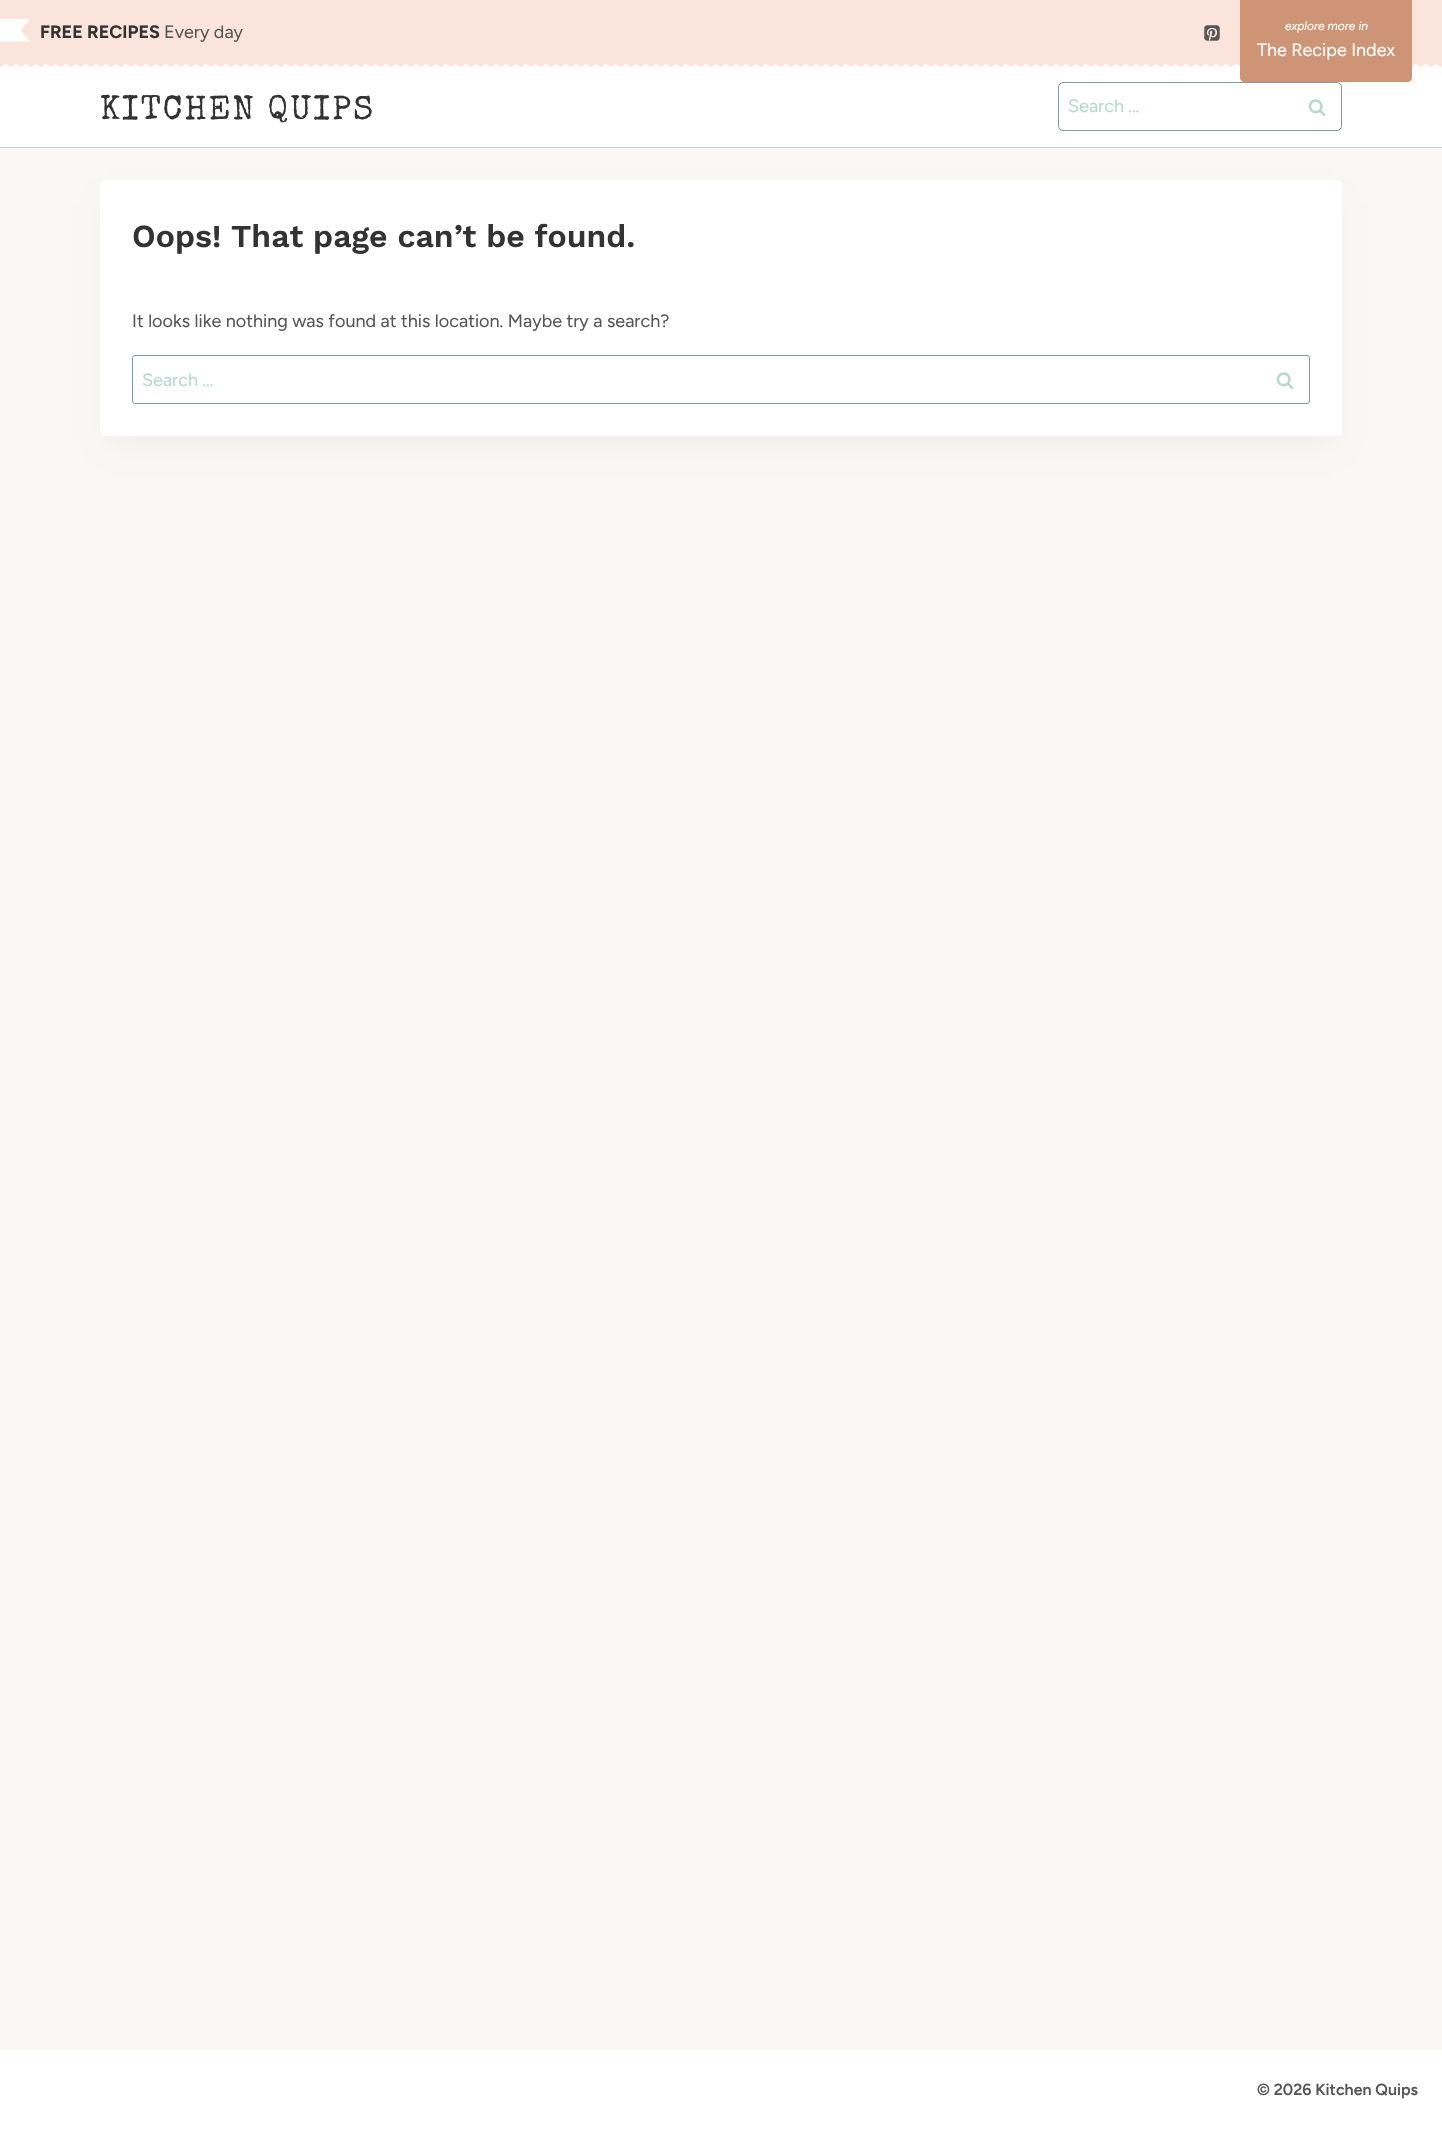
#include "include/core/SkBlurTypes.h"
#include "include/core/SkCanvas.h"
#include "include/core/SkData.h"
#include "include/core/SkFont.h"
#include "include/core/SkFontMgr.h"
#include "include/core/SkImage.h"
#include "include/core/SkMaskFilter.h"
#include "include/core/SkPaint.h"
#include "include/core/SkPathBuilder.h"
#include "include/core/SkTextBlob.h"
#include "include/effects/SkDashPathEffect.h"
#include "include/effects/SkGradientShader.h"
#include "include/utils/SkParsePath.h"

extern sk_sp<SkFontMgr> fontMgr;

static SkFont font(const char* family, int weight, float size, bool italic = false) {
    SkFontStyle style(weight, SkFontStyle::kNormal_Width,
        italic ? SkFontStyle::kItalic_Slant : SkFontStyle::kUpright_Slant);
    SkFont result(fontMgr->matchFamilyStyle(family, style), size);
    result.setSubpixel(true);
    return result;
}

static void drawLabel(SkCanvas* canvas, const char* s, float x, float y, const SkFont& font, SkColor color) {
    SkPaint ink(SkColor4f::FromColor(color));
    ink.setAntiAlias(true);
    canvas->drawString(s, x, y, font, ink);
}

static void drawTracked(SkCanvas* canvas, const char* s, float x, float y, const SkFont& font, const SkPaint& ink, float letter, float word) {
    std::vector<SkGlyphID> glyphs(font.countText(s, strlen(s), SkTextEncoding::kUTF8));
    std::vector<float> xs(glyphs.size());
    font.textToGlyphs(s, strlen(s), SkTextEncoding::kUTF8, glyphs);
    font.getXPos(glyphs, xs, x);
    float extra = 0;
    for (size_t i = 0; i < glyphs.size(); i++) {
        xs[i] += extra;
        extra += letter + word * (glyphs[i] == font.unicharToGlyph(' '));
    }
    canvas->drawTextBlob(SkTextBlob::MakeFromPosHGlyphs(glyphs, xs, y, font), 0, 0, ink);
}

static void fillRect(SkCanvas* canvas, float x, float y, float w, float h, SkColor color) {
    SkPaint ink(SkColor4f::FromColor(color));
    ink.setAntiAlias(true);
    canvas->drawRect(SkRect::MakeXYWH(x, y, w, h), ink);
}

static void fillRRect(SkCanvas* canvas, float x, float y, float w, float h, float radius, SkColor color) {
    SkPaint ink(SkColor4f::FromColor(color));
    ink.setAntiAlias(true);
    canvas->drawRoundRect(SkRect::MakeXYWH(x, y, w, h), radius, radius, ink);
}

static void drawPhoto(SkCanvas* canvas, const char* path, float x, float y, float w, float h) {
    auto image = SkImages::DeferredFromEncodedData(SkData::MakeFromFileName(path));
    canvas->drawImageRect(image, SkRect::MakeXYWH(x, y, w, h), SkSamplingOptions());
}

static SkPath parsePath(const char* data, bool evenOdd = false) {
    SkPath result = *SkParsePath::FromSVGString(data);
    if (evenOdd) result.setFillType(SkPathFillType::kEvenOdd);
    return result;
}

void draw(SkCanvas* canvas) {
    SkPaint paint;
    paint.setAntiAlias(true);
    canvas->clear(0xFFFAF8F4);
    fillRect(canvas, 0, 67, 1442, 80, 0xFFFFFFFF);
    fillRect(canvas, 0, 0, 1442, 67, 0xFFFAE4DC);
    drawPhoto(canvas, "assets/img1.png", 0, 64, 1442, 3);
    drawPhoto(canvas, "assets/img2.png", 0, 19, 30, 23);
    SkFont font1 = font("Figtree", 700, 18);
    drawLabel(canvas, "FREE RECIPES", 40, 38, font1, 0xFF333333);
    SkFont font2 = font("Figtree", 400, 18);
    drawLabel(canvas, "Every day", 164, 38, font2, 0xFF555555);
    drawPhoto(canvas, "assets/img3.png", 1204, 25, 16, 16);
    paint.setColor(0xFFCD9575);
    canvas->drawPath(parsePath("M1240 0H1412V77C1412 80 1410 82 1407 82H1245C1242 82 1240 80 1240 77Z"), paint);
    paint.setStroke(true);
    paint.setStrokeWidth(2);
    canvas->drawPath(parsePath("M1241-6H1411V77C1411 79 1409 81 1407 81H1245C1243 81 1241 79 1241 77Z"), paint);
    SkFont font3 = font("Figtree", 400, 12, true);
    drawLabel(canvas, "explore more in", 1285, 30, font3, 0xFFFFFFFF);
    drawLabel(canvas, "The Recipe Index", 1257, 56, font2, 0xFFFFFFFF);
    fillRect(canvas, 0, 147, 1442, 1, 0xFFB7D9CC);
    SkFont font4 = font("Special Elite", 400, 34);
    paint.setStroke(false);
    paint.setColor(0xFF333333);
    drawTracked(canvas, "KITCHEN QUIPS", 100, 119, font4, paint, 2, 0);
    paint.setStroke(true);
    paint.setStrokeWidth(1);
    paint.setColor(0xFF819B9A);
    canvas->drawRoundRect(SkRect::MakeXYWH(1058.5f, 82.5f, 283, 48), 4.5f, 4.5f, paint);
    drawLabel(canvas, "Search …", 1068, 112, font2, 0xFFB7D9CC);
    drawPhoto(canvas, "assets/img4.png", 1308, 99, 18, 17);
    paint.setStroke(false);
    paint.setColor(0x0D000000);
    paint.setMaskFilter(SkMaskFilter::MakeBlur(kNormal_SkBlurStyle, 12.5f));
    canvas->drawRect(SkRect::MakeXYWH(110, 205, 1222, 236), paint);
    paint.setMaskFilter(nullptr);
    fillRRect(canvas, 100, 180, 1242, 256, 4, 0xFFFFFFFF);
    SkFont font5 = font("Work Sans", 600, 32);
    drawLabel(canvas, "Oops! That page can’t be found.", 132, 247, font5, 0xFF333333);
    drawLabel(canvas, "It looks like nothing was found at this location. Maybe try a search?", 132, 327, font2, 0xFF555555);
    paint.setStroke(true);
    paint.setColor(0xFF819B9A);
    canvas->drawRoundRect(SkRect::MakeXYWH(132.5f, 355.5f, 1177, 48), 2.5f, 2.5f, paint);
    drawLabel(canvas, "Search …", 142, 386, font2, 0xFFB7D9CC);
    drawPhoto(canvas, "assets/img4.png", 1276, 372, 18, 17);
    fillRect(canvas, 0, 2050, 1442, 81, 0xFFFFFFFF);
    SkFont font6 = font("Figtree", 600, 16);
    drawLabel(canvas, "© 2026 Kitchen Quips", 1257, 2095, font6, 0xFF555555);
}
